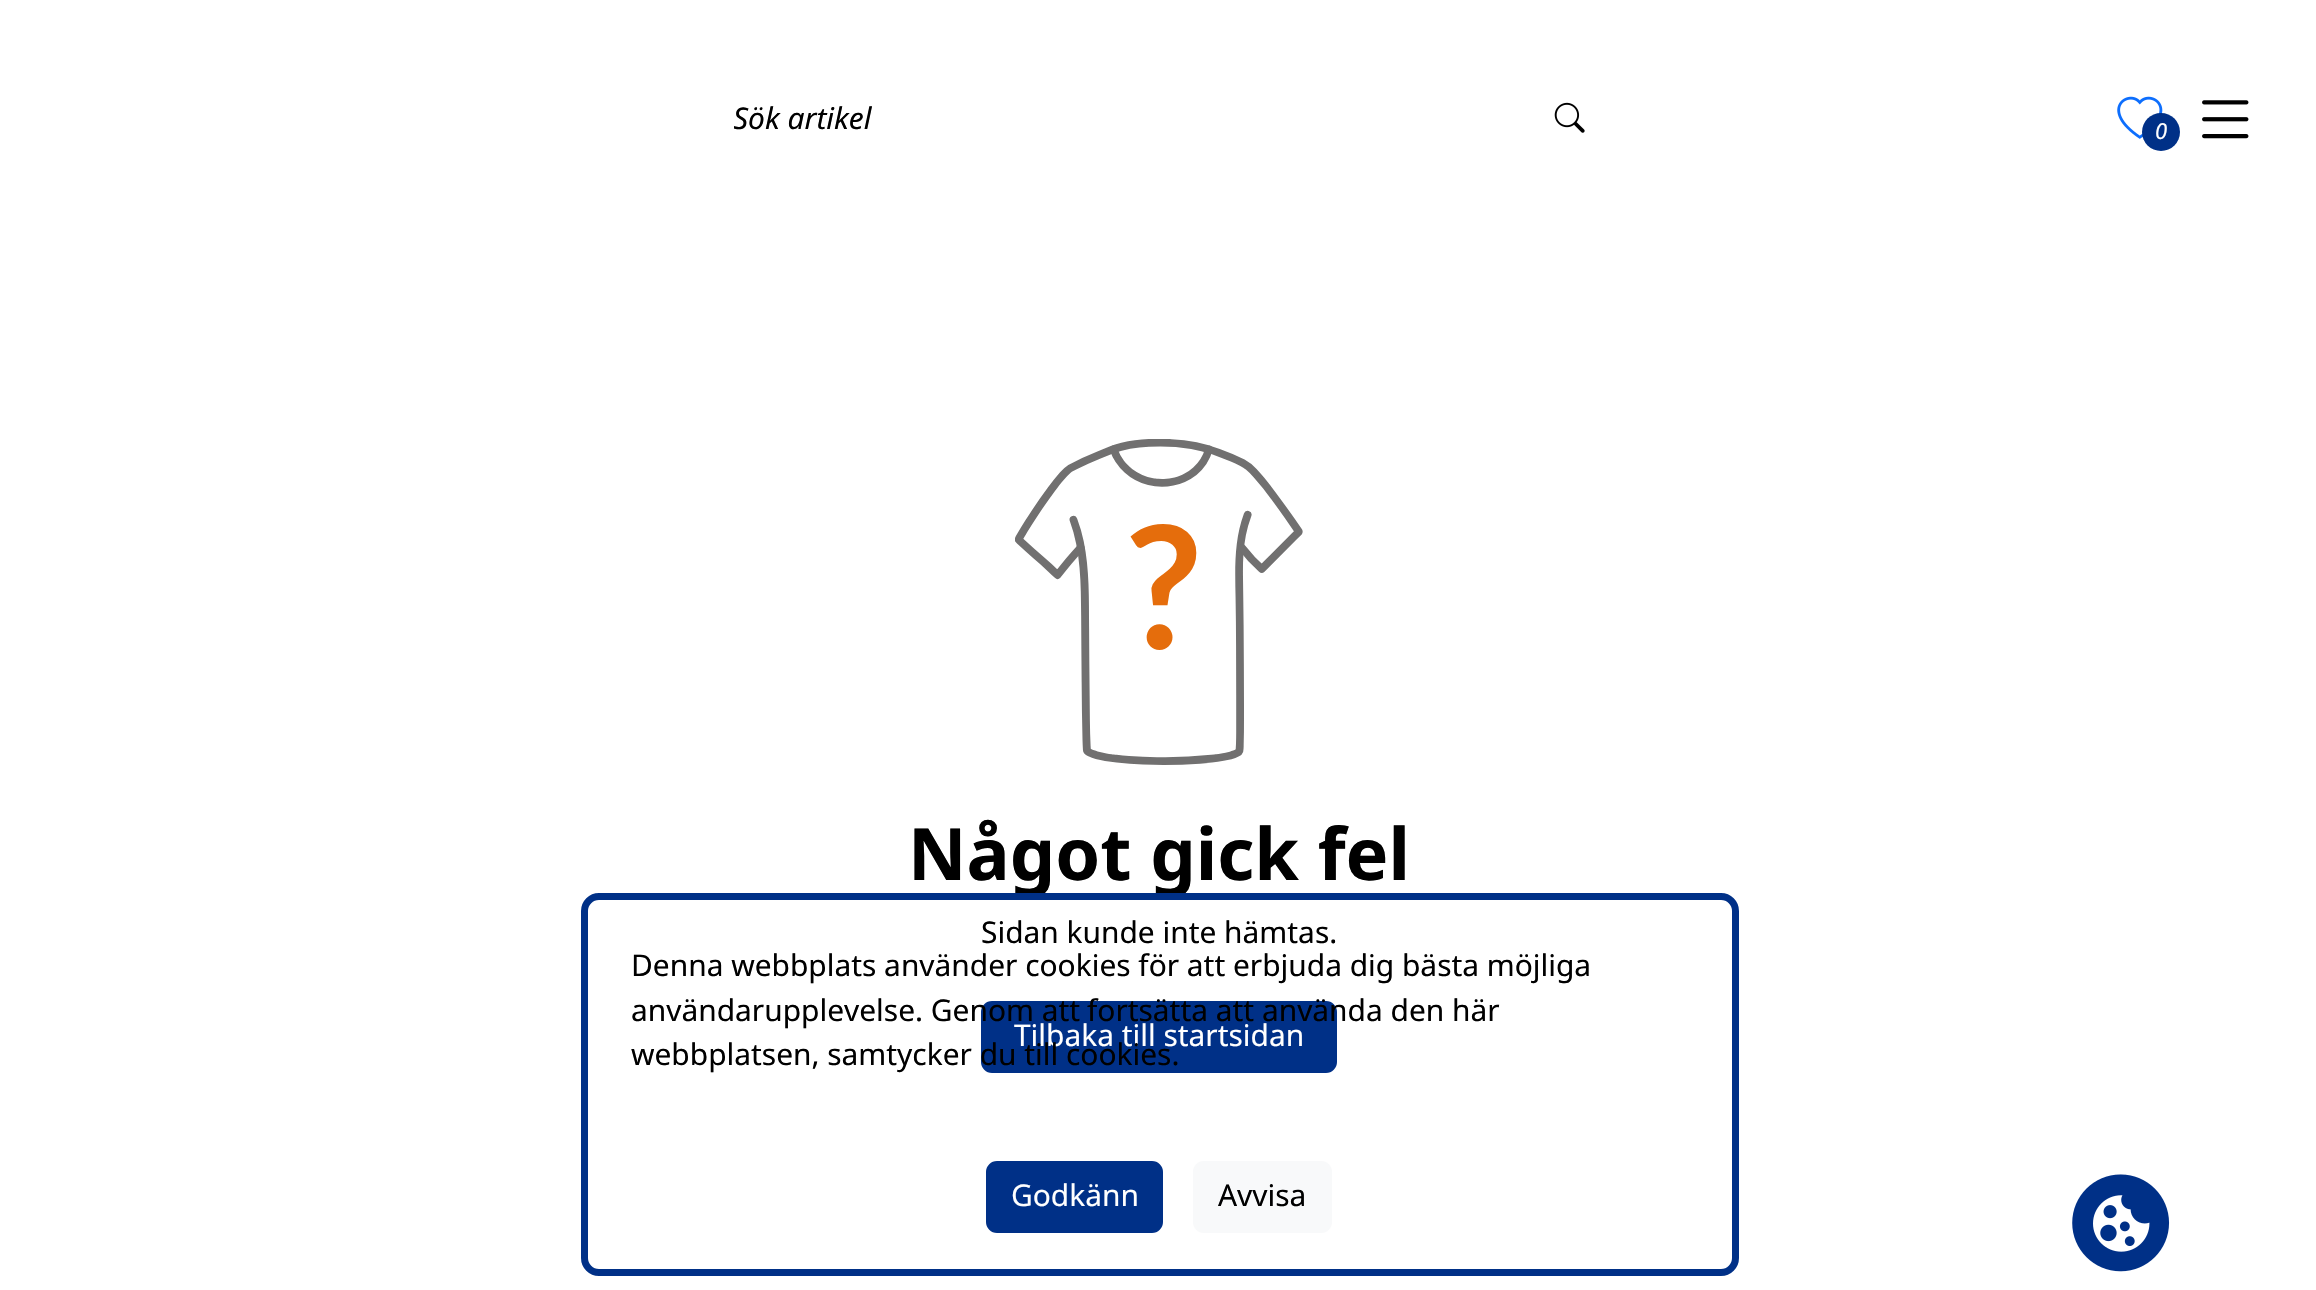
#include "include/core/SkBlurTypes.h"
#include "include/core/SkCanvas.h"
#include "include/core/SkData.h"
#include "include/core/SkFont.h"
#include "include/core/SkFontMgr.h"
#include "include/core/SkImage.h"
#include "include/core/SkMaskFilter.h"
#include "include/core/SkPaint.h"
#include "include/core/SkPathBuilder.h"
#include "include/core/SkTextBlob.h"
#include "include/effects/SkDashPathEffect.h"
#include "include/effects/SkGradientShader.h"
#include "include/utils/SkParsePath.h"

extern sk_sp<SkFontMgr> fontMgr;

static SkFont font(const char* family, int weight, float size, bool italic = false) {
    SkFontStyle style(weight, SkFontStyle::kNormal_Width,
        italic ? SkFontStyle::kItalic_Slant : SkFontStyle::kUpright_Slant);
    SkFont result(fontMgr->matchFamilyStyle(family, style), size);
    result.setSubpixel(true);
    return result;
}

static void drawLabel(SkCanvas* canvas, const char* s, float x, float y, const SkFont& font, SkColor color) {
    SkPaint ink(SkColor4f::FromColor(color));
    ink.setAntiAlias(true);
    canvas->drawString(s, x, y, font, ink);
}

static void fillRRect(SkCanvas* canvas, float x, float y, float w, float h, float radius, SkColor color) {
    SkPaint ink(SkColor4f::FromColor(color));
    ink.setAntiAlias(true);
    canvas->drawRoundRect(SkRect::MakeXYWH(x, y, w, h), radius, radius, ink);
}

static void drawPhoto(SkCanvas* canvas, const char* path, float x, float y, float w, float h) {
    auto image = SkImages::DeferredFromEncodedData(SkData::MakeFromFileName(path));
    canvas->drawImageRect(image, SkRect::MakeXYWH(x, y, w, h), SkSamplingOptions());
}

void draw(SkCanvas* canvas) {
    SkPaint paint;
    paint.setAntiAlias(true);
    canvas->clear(0xFFFFFFFF);
    canvas->save();
    canvas->clipRect(SkRect::MakeXYWH(734, 97, 783, 40));
    SkFont font1 = font("Noto Sans", 400, 29.9f, true);
    drawLabel(canvas, "Sök artikel", 733, 129, font1, 0xFF000000);
    canvas->restore();
    drawPhoto(canvas, "assets/img1.png", 1554, 102, 31, 31);
    drawPhoto(canvas, "assets/img2.png", 2117, 96, 46, 43);
    paint.setColor(0xFF003087);
    canvas->drawCircle(2161, 132, 19, paint);
    SkFont font2 = font("Noto Sans", 400, 22, true);
    drawLabel(canvas, "0", 2155, 139, font2, 0xFFFFFFFF);
    drawPhoto(canvas, "assets/img3.png", 2202, 100, 47, 39);
    drawPhoto(canvas, "assets/img4.png", 1015, 439, 288, 326);
    SkFont font3 = font("Noto Sans", 700, 72);
    drawLabel(canvas, "Något gick fel", 908, 880, font3, 0xFF000000);
    SkFont font4 = font("Noto Sans", 400, 29.9f);
    drawLabel(canvas, "Sidan kunde inte hämtas.", 981, 943, font4, 0xFF000000);
    canvas->drawRoundRect(SkRect::MakeXYWH(982, 1002, 354, 70), 10, 10, paint);
    paint.setStroke(true);
    paint.setStrokeWidth(2);
    canvas->drawRoundRect(SkRect::MakeXYWH(982, 1002, 354, 70), 10, 10, paint);
    drawLabel(canvas, "Tilbaka till startsidan", 1014, 1046, font4, 0xFFFFFFFF);
    paint.setStrokeWidth(7);
    canvas->drawRoundRect(SkRect::MakeXYWH(584.5f, 896.5f, 1151, 376), 14.5f, 14.5f, paint);
    drawLabel(canvas, "Denna webbplats använder cookies för att erbjuda dig bästa möjliga", 631, 976, font4, 0xFF000000);
    drawLabel(canvas, "användarupplevelse. Genom att", 631, 1021, font4, 0xFF000000);
    drawLabel(canvas, "fortsätta att använda den här", 1087, 1021, font4, 0xFF000000);
    drawLabel(canvas, "webbplatsen, samtycker du till cookies.", 631, 1065, font4, 0xFF000000);
    paint.setStroke(false);
    canvas->drawRoundRect(SkRect::MakeXYWH(987, 1162, 175, 70), 10, 10, paint);
    paint.setStroke(true);
    paint.setStrokeWidth(2);
    canvas->drawRoundRect(SkRect::MakeXYWH(987, 1162, 175, 70), 10, 10, paint);
    drawLabel(canvas, "Godkänn", 1011, 1206, font4, 0xFFFFFFFF);
    fillRRect(canvas, 1193, 1161, 139, 72, 11, 0xFFF8F9FA);
    drawLabel(canvas, "Avvisa", 1218, 1206, font4, 0xFF000000);
    drawPhoto(canvas, "assets/img5.png", 2072, 1174, 98, 98);
}
